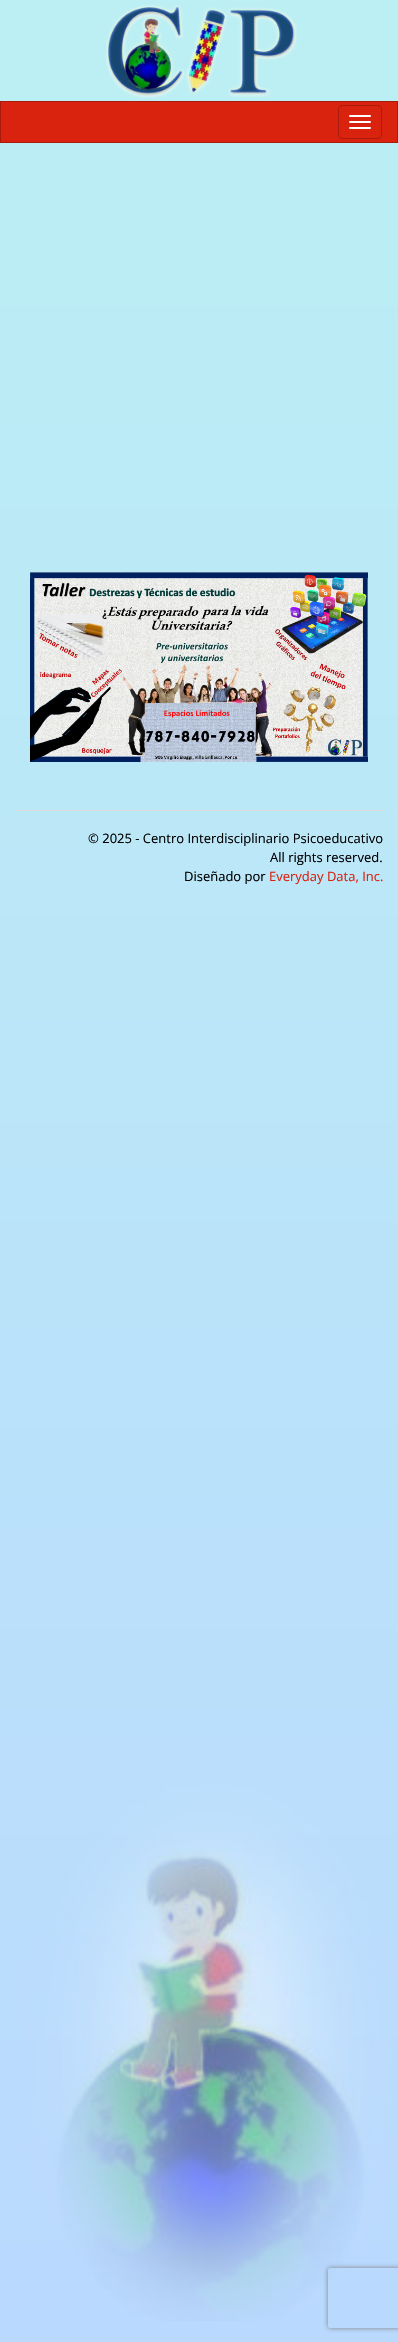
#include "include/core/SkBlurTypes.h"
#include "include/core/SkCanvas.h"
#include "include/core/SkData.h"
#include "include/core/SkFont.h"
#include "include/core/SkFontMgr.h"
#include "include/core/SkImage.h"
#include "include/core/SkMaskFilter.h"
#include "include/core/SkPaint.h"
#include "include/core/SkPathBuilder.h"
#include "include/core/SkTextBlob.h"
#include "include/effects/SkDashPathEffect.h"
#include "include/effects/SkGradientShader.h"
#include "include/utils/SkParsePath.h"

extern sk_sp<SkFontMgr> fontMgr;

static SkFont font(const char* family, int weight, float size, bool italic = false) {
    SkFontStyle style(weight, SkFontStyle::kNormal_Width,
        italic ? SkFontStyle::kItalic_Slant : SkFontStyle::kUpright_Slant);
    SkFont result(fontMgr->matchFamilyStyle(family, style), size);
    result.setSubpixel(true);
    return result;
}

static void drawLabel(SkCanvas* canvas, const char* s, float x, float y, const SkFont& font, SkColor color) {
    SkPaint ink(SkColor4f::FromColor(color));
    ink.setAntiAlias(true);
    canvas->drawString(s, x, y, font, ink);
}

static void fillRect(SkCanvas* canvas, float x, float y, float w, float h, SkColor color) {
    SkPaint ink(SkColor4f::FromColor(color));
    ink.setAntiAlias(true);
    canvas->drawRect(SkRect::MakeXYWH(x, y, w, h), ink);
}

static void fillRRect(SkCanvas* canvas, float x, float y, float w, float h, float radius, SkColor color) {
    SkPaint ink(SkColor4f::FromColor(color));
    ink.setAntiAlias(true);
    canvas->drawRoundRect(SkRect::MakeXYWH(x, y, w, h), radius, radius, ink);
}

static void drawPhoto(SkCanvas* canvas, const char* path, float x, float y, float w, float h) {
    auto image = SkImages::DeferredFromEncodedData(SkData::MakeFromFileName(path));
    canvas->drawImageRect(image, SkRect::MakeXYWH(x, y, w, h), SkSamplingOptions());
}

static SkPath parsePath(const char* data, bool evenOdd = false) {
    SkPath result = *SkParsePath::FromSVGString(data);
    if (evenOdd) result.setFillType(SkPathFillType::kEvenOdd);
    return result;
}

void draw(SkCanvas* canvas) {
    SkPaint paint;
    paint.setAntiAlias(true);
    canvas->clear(0xFFBAD9FF);
    drawPhoto(canvas, "assets/img1.png", 0, 0, 398, 2321);
    drawPhoto(canvas, "assets/img2.png", 106, 5, 191, 93);
    paint.setColor(0xFFD9230F);
    canvas->drawRect(SkRect::MakeXYWH(0.5f, 101.5f, 397, 41), paint);
    paint.setStroke(true);
    paint.setStrokeWidth(1);
    paint.setColor(0xFFA91B0C);
    canvas->drawRect(SkRect::MakeXYWH(0.5f, 101.5f, 397, 41), paint);
    canvas->drawRoundRect(SkRect::MakeXYWH(338.5f, 105.5f, 43, 33), 3.5f, 3.5f, paint);
    fillRRect(canvas, 349, 115, 22, 2, 1, 0xFFFFFFFF);
    fillRRect(canvas, 349, 121, 22, 2, 1, 0xFFFFFFFF);
    fillRRect(canvas, 349, 127, 22, 2, 1, 0xFFFFFFFF);
    drawPhoto(canvas, "assets/img3.png", 30, 572, 338, 190);
    fillRect(canvas, 15, 810, 368, 1, 0xFFDDDDDD);
    SkFont font1 = font("Open Sans", 400, 13);
    drawLabel(canvas, "© 2025 - Centro Interdisciplinario Psicoeducativo", 88, 843, font1, 0xFF000000);
    drawLabel(canvas, "All rights reserved.", 270, 862, font1, 0xFF000000);
    drawLabel(canvas, "Diseñado por", 184, 881, font1, 0xFF000000);
    drawLabel(canvas, "Everyday Data, Inc.", 269, 881, font1, 0xFFD9230F);
    canvas->save();
    canvas->clipPath(parsePath("M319 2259H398V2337H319ZM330 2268H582C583 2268 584 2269 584 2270V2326C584 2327 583 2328 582 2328H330C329 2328 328 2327 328 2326V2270C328 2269 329 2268 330 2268Z", true), true);
    paint.setStroke(false);
    paint.setColor(0xFF808080);
    paint.setMaskFilter(SkMaskFilter::MakeBlur(kNormal_SkBlurStyle, 2.5f));
    canvas->drawRoundRect(SkRect::MakeXYWH(328, 2268, 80, 60), 2, 2, paint);
    paint.setMaskFilter(nullptr);
    canvas->restore();
}
